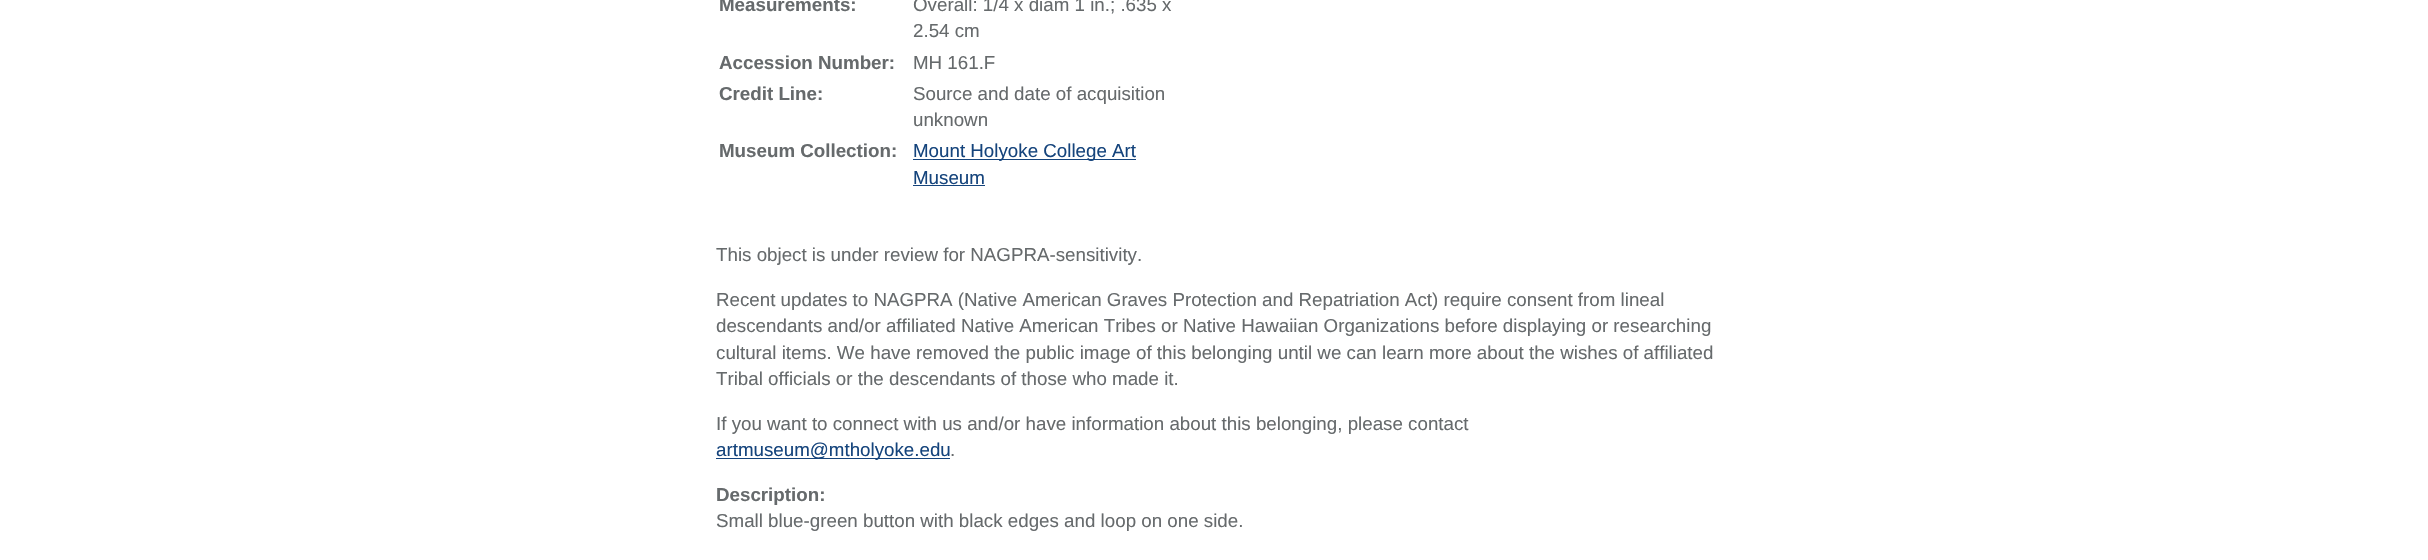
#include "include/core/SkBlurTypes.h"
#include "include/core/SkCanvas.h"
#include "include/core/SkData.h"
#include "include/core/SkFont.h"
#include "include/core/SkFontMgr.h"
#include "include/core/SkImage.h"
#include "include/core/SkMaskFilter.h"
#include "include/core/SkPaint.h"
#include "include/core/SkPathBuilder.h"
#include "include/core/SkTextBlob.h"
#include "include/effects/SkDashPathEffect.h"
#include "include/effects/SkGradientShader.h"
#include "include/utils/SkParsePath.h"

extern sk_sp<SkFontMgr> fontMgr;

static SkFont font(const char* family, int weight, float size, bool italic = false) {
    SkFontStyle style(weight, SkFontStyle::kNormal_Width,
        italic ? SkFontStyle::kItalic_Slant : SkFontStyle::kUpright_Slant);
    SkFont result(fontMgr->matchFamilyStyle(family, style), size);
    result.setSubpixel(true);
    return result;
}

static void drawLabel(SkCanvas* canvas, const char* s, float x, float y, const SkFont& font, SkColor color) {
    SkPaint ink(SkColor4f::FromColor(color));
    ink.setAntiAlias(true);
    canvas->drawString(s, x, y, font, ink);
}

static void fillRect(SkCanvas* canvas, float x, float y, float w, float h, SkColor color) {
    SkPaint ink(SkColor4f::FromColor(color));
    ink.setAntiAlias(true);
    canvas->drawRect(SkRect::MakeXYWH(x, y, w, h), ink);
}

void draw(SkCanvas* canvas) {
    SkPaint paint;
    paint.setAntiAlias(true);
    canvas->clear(0xFFFFFFFF);
    SkFont font1 = font("Liberation Sans", 700, 18.75f);
    drawLabel(canvas, "Measurements:", 719, 11, font1, 0xFF666A6C);
    SkFont font2 = font("Liberation Sans", 400, 18.75f);
    drawLabel(canvas, "Overall: 1/4 x diam 1 in.; .635 x", 913, 11, font2, 0xFF666A6C);
    drawLabel(canvas, "2.54 cm", 913, 37, font2, 0xFF666A6C);
    drawLabel(canvas, "Accession Number:", 719, 69, font1, 0xFF666A6C);
    drawLabel(canvas, "MH 161.F", 913, 69, font2, 0xFF666A6C);
    drawLabel(canvas, "Credit Line:", 719, 100, font1, 0xFF666A6C);
    drawLabel(canvas, "Source and date of acquisition", 913, 100, font2, 0xFF666A6C);
    drawLabel(canvas, "unknown", 913, 126, font2, 0xFF666A6C);
    drawLabel(canvas, "Museum Collection:", 719, 157, font1, 0xFF666A6C);
    fillRect(canvas, 913, 159, 223, 1, 0xFF15447C);
    drawLabel(canvas, "Mount Holyoke College Art", 913, 157, font2, 0xFF15447C);
    drawLabel(canvas, "Museum", 913, 184, font2, 0xFF15447C);
    fillRect(canvas, 913, 185, 72, 1, 0xFF15447C);
    drawLabel(canvas, "This object is under review for NAGPRA-sensitivity.", 716, 261, font2, 0xFF666A6C);
    drawLabel(canvas, "Recent updates to NAGPRA (Native American Graves Protection and Repatriation Act) require consent from lineal", 716, 306, font2, 0xFF666A6C);
    drawLabel(canvas, "descendants and/or affiliated Native American Tribes or Native Hawaiian Organizations before displaying or researching", 716, 332, font2, 0xFF666A6C);
    drawLabel(canvas, "cultural items. We have removed the public image of this belonging until we can learn more about the wishes of affiliated", 716, 359, font2, 0xFF666A6C);
    drawLabel(canvas, "Tribal officials or the descendants of those who made it.", 716, 385, font2, 0xFF666A6C);
    drawLabel(canvas, "If you want to connect with us and/or have information about this belonging, please contact", 716, 430, font2, 0xFF666A6C);
    fillRect(canvas, 716, 458, 234, 1, 0xFF15447C);
    drawLabel(canvas, "artmuseum@mtholyoke.edu", 716, 456, font2, 0xFF15447C);
    drawLabel(canvas, ".", 950, 456, font2, 0xFF666A6C);
    drawLabel(canvas, "Description:", 716, 501, font1, 0xFF666A6C);
    drawLabel(canvas, "Small blue-green button with black edges and loop on one side.", 716, 527, font2, 0xFF666A6C);
}
